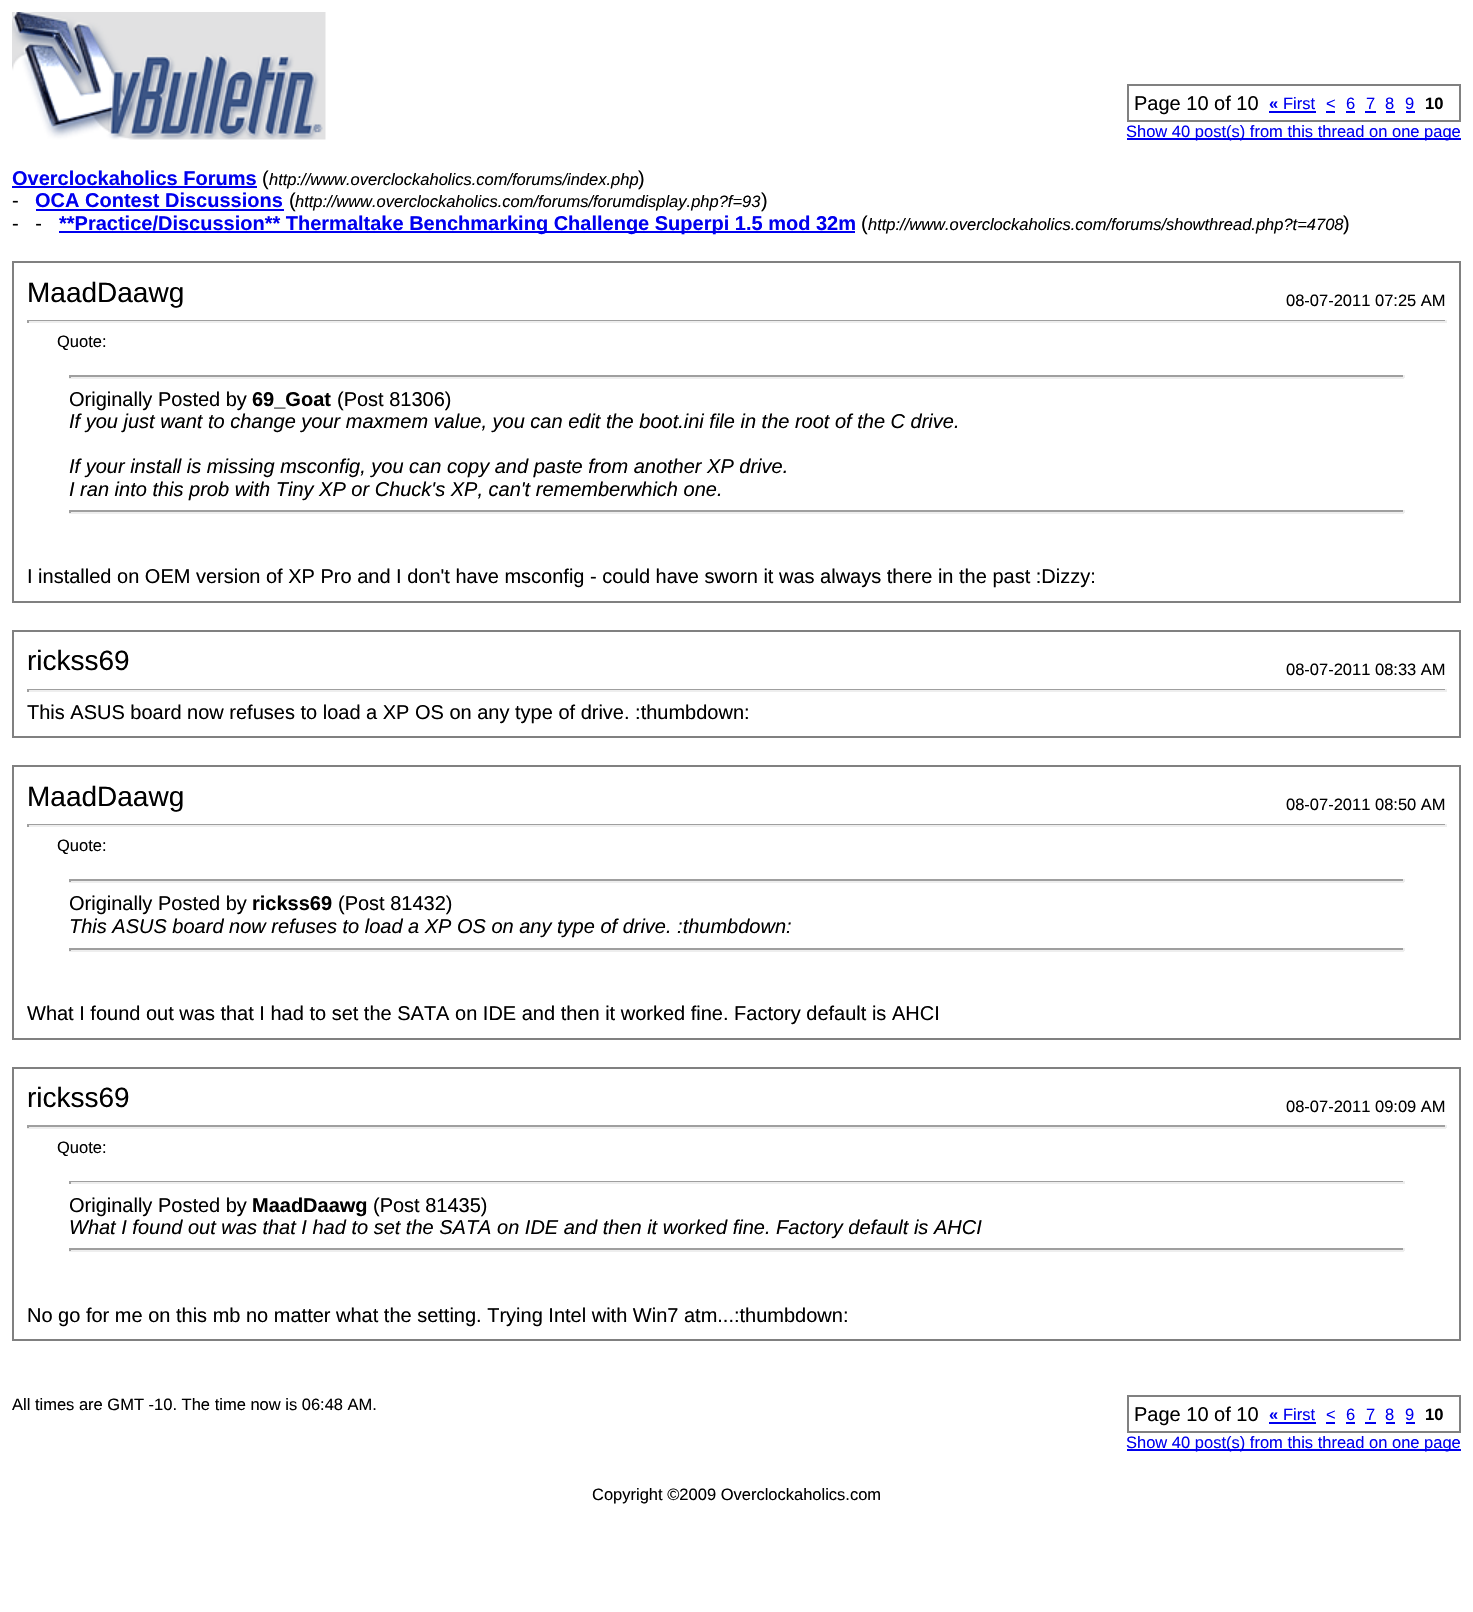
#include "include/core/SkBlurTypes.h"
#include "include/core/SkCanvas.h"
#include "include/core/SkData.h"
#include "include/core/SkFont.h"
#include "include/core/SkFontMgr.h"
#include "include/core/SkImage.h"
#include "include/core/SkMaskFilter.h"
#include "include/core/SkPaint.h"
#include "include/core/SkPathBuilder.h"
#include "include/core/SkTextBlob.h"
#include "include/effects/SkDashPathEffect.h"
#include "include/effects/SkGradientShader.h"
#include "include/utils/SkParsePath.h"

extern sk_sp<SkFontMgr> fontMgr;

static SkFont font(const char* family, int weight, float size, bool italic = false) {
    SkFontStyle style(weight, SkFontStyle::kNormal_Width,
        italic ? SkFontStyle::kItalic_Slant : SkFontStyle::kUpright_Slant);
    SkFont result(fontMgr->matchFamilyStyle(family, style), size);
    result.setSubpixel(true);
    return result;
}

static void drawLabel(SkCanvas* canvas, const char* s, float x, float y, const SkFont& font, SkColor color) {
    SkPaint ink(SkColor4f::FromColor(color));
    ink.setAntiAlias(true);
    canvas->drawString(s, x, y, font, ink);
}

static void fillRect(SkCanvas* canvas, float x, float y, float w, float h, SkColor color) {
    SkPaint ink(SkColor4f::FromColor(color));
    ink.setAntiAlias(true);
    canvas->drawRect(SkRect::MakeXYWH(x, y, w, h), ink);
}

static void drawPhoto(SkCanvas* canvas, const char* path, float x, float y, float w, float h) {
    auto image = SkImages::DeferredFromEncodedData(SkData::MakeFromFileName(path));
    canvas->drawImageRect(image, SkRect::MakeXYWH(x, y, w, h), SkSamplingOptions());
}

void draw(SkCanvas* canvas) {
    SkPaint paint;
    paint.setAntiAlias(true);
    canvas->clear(0xFFFFFFFF);
    drawPhoto(canvas, "assets/img1.png", 12, 12, 314, 128);
    paint.setStroke(true);
    paint.setStrokeWidth(2);
    paint.setColor(0xFF808080);
    canvas->drawRect(SkRect::MakeXYWH(1128, 85, 332, 36), paint);
    SkFont font1 = font("Liberation Sans", 400, 20);
    drawLabel(canvas, "Page 10 of 10", 1134, 110, font1, 0xFF000000);
    SkFont font2 = font("Liberation Sans", 700, 16.5f);
    drawLabel(canvas, "«", 1269, 109, font2, 0xFF0000EE);
    fillRect(canvas, 1269, 111, 47, 2, 0xFF0000EE);
    SkFont font3 = font("Liberation Sans", 400, 16.5f);
    drawLabel(canvas, "First", 1283, 109, font3, 0xFF0000EE);
    drawLabel(canvas, "<", 1326, 109, font3, 0xFF0000EE);
    fillRect(canvas, 1326, 111, 9, 2, 0xFF0000EE);
    drawLabel(canvas, "6", 1346, 109, font3, 0xFF0000EE);
    fillRect(canvas, 1346, 111, 9, 2, 0xFF0000EE);
    drawLabel(canvas, "7", 1366, 109, font3, 0xFF0000EE);
    fillRect(canvas, 1365, 111, 11, 2, 0xFF0000EE);
    drawLabel(canvas, "8", 1385, 109, font3, 0xFF0000EE);
    fillRect(canvas, 1386, 111, 9, 2, 0xFF0000EE);
    drawLabel(canvas, "9", 1405, 109, font3, 0xFF0000EE);
    fillRect(canvas, 1406, 111, 9, 2, 0xFF0000EE);
    drawLabel(canvas, "10", 1425, 109, font2, 0xFF000000);
    fillRect(canvas, 1127, 138, 334, 2, 0xFF0000EE);
    drawLabel(canvas, "Show 40 post(s) from this thread on one page", 1126, 137, font3, 0xFF0000EE);
    SkFont font4 = font("Liberation Sans", 700, 20);
    drawLabel(canvas, "Overclockaholics Forums", 12, 185, font4, 0xFF0000EE);
    fillRect(canvas, 12, 186, 245, 2, 0xFF0000EE);
    drawLabel(canvas, "(", 262, 185, font1, 0xFF000000);
    SkFont font5 = font("Liberation Sans", 400, 16.5f, true);
    drawLabel(canvas, "http://www.overclockaholics.com/forums/index.php", 269, 185, font5, 0xFF000000);
    drawLabel(canvas, ")", 638, 185, font1, 0xFF000000);
    drawLabel(canvas, "-", 12, 207, font1, 0xFF000000);
    drawLabel(canvas, "OCA Contest Discussions", 35, 207, font4, 0xFF0000EE);
    fillRect(canvas, 36, 209, 248, 2, 0xFF0000EE);
    drawLabel(canvas, "(", 289, 207, font1, 0xFF000000);
    drawLabel(canvas, "http://www.overclockaholics.com/forums/forumdisplay.php?f=93", 295, 207, font5, 0xFF000000);
    drawLabel(canvas, ")", 761, 207, font1, 0xFF000000);
    drawLabel(canvas, "-   -", 12, 230, font1, 0xFF000000);
    fillRect(canvas, 59, 231, 796, 2, 0xFF0000EE);
    drawLabel(canvas, "**Practice/Discussion** Thermaltake Benchmarking Challenge Superpi 1.5 mod 32m", 59, 230, font4, 0xFF0000EE);
    drawLabel(canvas, "(", 861, 230, font1, 0xFF000000);
    drawLabel(canvas, "http://www.overclockaholics.com/forums/showthread.php?t=4708", 868, 230, font5, 0xFF000000);
    drawLabel(canvas, ")", 1343, 230, font1, 0xFF000000);
    canvas->drawRect(SkRect::MakeXYWH(13, 262, 1447, 340), paint);
    SkFont font6 = font("Liberation Sans", 400, 28);
    drawLabel(canvas, "MaadDaawg", 27, 302, font6, 0xFF000000);
    drawLabel(canvas, "08-07-2011 07:25 AM", 1286, 306, font3, 0xFF000000);
    fillRect(canvas, 27, 320, 1419, 1, 0xFF9F9F9F);
    fillRect(canvas, 1445, 320, 2, 3, 0xFFEEEEEE);
    fillRect(canvas, 27, 321, 1419, 2, 0xFFEEEEEE);
    fillRect(canvas, 27, 320, 2, 3, 0xFF9F9F9F);
    drawLabel(canvas, "Quote:", 57, 347, font3, 0xFF000000);
    fillRect(canvas, 69, 375, 1335, 2, 0xFF9F9F9F);
    fillRect(canvas, 1403, 375, 2, 3, 0xFFEEEEEE);
    fillRect(canvas, 69, 377, 1335, 2, 0xFFEEEEEE);
    fillRect(canvas, 69, 375, 2, 3, 0xFF9F9F9F);
    drawLabel(canvas, "Originally Posted by", 69, 406, font1, 0xFF000000);
    drawLabel(canvas, "69_Goat", 252, 406, font4, 0xFF000000);
    drawLabel(canvas, "(Post 81306)", 337, 406, font1, 0xFF000000);
    SkFont font7 = font("Liberation Sans", 400, 20, true);
    drawLabel(canvas, "If you just want to change your maxmem value, you can edit the boot.ini file in the root of the C drive.", 69, 428, font7, 0xFF000000);
    drawLabel(canvas, "If your install is missing msconfig, you can copy and paste from another XP drive.", 69, 473, font7, 0xFF000000);
    drawLabel(canvas, "I ran into this prob with Tiny XP or Chuck's XP, can't rememberwhich one.", 69, 496, font7, 0xFF000000);
    fillRect(canvas, 69, 510, 1335, 2, 0xFF9F9F9F);
    fillRect(canvas, 1403, 510, 2, 3, 0xFFEEEEEE);
    fillRect(canvas, 69, 512, 1335, 2, 0xFFEEEEEE);
    fillRect(canvas, 69, 510, 2, 3, 0xFF9F9F9F);
    drawLabel(canvas, "I installed on OEM version of XP Pro and I don't have msconfig - could have sworn it was always there in the past :Dizzy:", 27, 583, font1, 0xFF000000);
    canvas->drawRect(SkRect::MakeXYWH(13, 631, 1447, 106), paint);
    drawLabel(canvas, "rickss69", 27, 670, font6, 0xFF000000);
    drawLabel(canvas, "08-07-2011 08:33 AM", 1286, 675, font3, 0xFF000000);
    fillRect(canvas, 27, 689, 1419, 1, 0xFF9F9F9F);
    fillRect(canvas, 1445, 689, 2, 3, 0xFFEEEEEE);
    fillRect(canvas, 27, 690, 1419, 2, 0xFFEEEEEE);
    fillRect(canvas, 27, 689, 2, 3, 0xFF9F9F9F);
    drawLabel(canvas, "This ASUS board now refuses to load a XP OS on any type of drive. :thumbdown:", 27, 719, font1, 0xFF000000);
    canvas->drawRect(SkRect::MakeXYWH(13, 766, 1447, 273), paint);
    drawLabel(canvas, "MaadDaawg", 27, 806, font6, 0xFF000000);
    drawLabel(canvas, "08-07-2011 08:50 AM", 1286, 810, font3, 0xFF000000);
    fillRect(canvas, 27, 824, 1419, 1, 0xFF9F9F9F);
    fillRect(canvas, 1445, 824, 2, 3, 0xFFEEEEEE);
    fillRect(canvas, 27, 825, 1419, 2, 0xFFEEEEEE);
    fillRect(canvas, 27, 824, 2, 3, 0xFF9F9F9F);
    drawLabel(canvas, "Quote:", 57, 851, font3, 0xFF000000);
    fillRect(canvas, 69, 879, 1335, 2, 0xFF9F9F9F);
    fillRect(canvas, 1403, 879, 2, 3, 0xFFEEEEEE);
    fillRect(canvas, 69, 881, 1335, 2, 0xFFEEEEEE);
    fillRect(canvas, 69, 879, 2, 3, 0xFF9F9F9F);
    drawLabel(canvas, "Originally Posted by", 69, 910, font1, 0xFF000000);
    drawLabel(canvas, "rickss69", 252, 910, font4, 0xFF000000);
    drawLabel(canvas, "(Post 81432)", 338, 910, font1, 0xFF000000);
    drawLabel(canvas, "This ASUS board now refuses to load a XP OS on any type of drive. :thumbdown:", 69, 933, font7, 0xFF000000);
    fillRect(canvas, 69, 948, 1335, 2, 0xFF9F9F9F);
    fillRect(canvas, 1403, 948, 2, 3, 0xFFEEEEEE);
    fillRect(canvas, 69, 950, 1335, 2, 0xFFEEEEEE);
    fillRect(canvas, 69, 948, 2, 3, 0xFF9F9F9F);
    drawLabel(canvas, "What I found out was that I had to set the SATA on IDE and then it worked fine. Factory default is AHCI", 27, 1020, font1, 0xFF000000);
    canvas->drawRect(SkRect::MakeXYWH(13, 1068, 1447, 272), paint);
    drawLabel(canvas, "rickss69", 27, 1107, font6, 0xFF000000);
    drawLabel(canvas, "08-07-2011 09:09 AM", 1286, 1112, font3, 0xFF000000);
    fillRect(canvas, 27, 1125, 1419, 2, 0xFF9F9F9F);
    fillRect(canvas, 1445, 1125, 2, 3, 0xFFEEEEEE);
    fillRect(canvas, 27, 1127, 1419, 2, 0xFFEEEEEE);
    fillRect(canvas, 27, 1125, 2, 3, 0xFF9F9F9F);
    drawLabel(canvas, "Quote:", 57, 1153, font3, 0xFF000000);
    fillRect(canvas, 69, 1181, 1335, 1, 0xFF9F9F9F);
    fillRect(canvas, 1403, 1181, 2, 3, 0xFFEEEEEE);
    fillRect(canvas, 69, 1182, 1335, 2, 0xFFEEEEEE);
    fillRect(canvas, 69, 1181, 2, 3, 0xFF9F9F9F);
    drawLabel(canvas, "Originally Posted by", 69, 1212, font1, 0xFF000000);
    drawLabel(canvas, "MaadDaawg", 252, 1212, font4, 0xFF000000);
    drawLabel(canvas, "(Post 81435)", 373, 1212, font1, 0xFF000000);
    drawLabel(canvas, "What I found out was that I had to set the SATA on IDE and then it worked fine. Factory default is AHCI", 69, 1234, font7, 0xFF000000);
    fillRect(canvas, 69, 1248, 1335, 2, 0xFF9F9F9F);
    fillRect(canvas, 1403, 1248, 2, 3, 0xFFEEEEEE);
    fillRect(canvas, 69, 1250, 1335, 2, 0xFFEEEEEE);
    fillRect(canvas, 69, 1248, 2, 3, 0xFF9F9F9F);
    drawLabel(canvas, "No go for me on this mb no matter what the setting. Trying Intel with Win7 atm...:thumbdown:", 27, 1322, font1, 0xFF000000);
    drawLabel(canvas, "All times are GMT -10. The time now is 06:48 AM.", 12, 1410, font3, 0xFF000000);
    canvas->drawRect(SkRect::MakeXYWH(1128, 1396, 332, 36), paint);
    drawLabel(canvas, "Page 10 of 10", 1134, 1421, font1, 0xFF000000);
    drawLabel(canvas, "«", 1269, 1420, font2, 0xFF0000EE);
    fillRect(canvas, 1269, 1422, 47, 2, 0xFF0000EE);
    drawLabel(canvas, "First", 1283, 1420, font3, 0xFF0000EE);
    drawLabel(canvas, "<", 1326, 1420, font3, 0xFF0000EE);
    fillRect(canvas, 1326, 1422, 9, 2, 0xFF0000EE);
    drawLabel(canvas, "6", 1346, 1420, font3, 0xFF0000EE);
    fillRect(canvas, 1346, 1422, 9, 2, 0xFF0000EE);
    drawLabel(canvas, "7", 1366, 1420, font3, 0xFF0000EE);
    fillRect(canvas, 1365, 1422, 11, 2, 0xFF0000EE);
    drawLabel(canvas, "8", 1385, 1420, font3, 0xFF0000EE);
    fillRect(canvas, 1386, 1422, 9, 2, 0xFF0000EE);
    drawLabel(canvas, "9", 1405, 1420, font3, 0xFF0000EE);
    fillRect(canvas, 1406, 1422, 9, 2, 0xFF0000EE);
    drawLabel(canvas, "10", 1425, 1420, font2, 0xFF000000);
    fillRect(canvas, 1127, 1449, 334, 2, 0xFF0000EE);
    drawLabel(canvas, "Show 40 post(s) from this thread on one page", 1126, 1448, font3, 0xFF0000EE);
    drawLabel(canvas, "Copyright ©2009 Overclockaholics.com", 592, 1500, font3, 0xFF000000);
}
